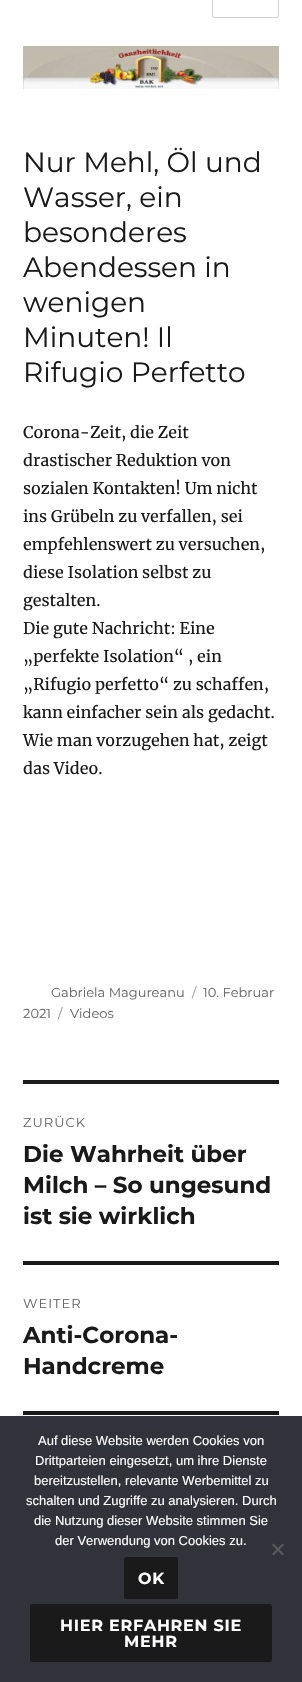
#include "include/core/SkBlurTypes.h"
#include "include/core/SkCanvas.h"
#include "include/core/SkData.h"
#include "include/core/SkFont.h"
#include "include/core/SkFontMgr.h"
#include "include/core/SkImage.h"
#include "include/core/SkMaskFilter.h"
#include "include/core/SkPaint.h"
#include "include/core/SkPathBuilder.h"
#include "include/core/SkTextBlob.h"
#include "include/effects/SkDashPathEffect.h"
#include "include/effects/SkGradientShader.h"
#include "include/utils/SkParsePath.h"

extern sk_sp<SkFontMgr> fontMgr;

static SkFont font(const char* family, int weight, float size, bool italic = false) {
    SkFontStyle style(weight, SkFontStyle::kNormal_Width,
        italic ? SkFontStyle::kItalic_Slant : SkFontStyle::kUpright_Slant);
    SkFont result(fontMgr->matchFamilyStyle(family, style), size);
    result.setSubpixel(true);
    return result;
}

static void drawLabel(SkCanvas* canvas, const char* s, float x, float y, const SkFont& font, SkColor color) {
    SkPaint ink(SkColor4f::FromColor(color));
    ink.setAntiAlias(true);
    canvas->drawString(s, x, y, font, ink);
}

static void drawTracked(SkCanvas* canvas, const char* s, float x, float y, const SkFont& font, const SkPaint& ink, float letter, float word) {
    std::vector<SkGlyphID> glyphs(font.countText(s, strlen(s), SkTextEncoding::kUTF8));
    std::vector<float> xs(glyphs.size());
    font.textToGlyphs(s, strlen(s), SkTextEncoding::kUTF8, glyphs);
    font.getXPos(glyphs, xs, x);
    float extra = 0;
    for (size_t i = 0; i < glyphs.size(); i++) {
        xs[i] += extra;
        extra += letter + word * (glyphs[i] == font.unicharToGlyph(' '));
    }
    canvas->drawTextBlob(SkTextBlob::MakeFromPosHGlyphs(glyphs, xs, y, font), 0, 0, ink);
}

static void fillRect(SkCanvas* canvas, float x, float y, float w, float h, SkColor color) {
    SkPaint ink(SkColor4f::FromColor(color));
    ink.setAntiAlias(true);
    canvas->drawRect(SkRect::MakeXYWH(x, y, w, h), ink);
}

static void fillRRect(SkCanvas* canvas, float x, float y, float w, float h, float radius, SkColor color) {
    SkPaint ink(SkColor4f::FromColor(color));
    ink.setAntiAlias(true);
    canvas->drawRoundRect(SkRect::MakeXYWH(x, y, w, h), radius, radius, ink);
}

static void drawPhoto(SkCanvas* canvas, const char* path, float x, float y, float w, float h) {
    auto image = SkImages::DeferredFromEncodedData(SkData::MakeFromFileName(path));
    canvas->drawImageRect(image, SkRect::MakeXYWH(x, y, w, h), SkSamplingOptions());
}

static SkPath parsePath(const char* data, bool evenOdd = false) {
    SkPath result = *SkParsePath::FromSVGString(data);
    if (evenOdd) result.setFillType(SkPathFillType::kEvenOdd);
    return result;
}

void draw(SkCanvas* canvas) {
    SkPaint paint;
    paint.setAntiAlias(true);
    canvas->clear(0xFFFFFFFF);
    paint.setStroke(true);
    paint.setStrokeWidth(1);
    paint.setColor(0xFFD1D1D1);
    canvas->drawRoundRect(SkRect::MakeXYWH(212.5f, -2.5f, 66, 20), 1.5f, 1.5f, paint);
    drawPhoto(canvas, "assets/img1.png", 23, 46, 256, 43);
    SkFont font1 = font("Montserrat", 100, 28);
    drawLabel(canvas, "Nur Mehl, Öl und", 23, 172, font1, 0xFF1A1A1A);
    drawLabel(canvas, "Wasser, ein", 23, 207, font1, 0xFF1A1A1A);
    drawLabel(canvas, "besonderes", 23, 242, font1, 0xFF1A1A1A);
    drawLabel(canvas, "Abendessen in", 23, 277, font1, 0xFF1A1A1A);
    drawLabel(canvas, "wenigen", 23, 312, font1, 0xFF1A1A1A);
    drawLabel(canvas, "Minuten! Il", 23, 347, font1, 0xFF1A1A1A);
    drawLabel(canvas, "Rifugio Perfetto", 23, 382, font1, 0xFF1A1A1A);
    SkFont font2 = font("Merriweather", 400, 16);
    drawLabel(canvas, "Corona-Zeit, die Zeit", 23, 438, font2, 0xFF1A1A1A);
    drawLabel(canvas, "drastischer Reduktion von", 23, 466, font2, 0xFF1A1A1A);
    drawLabel(canvas, "sozialen Kontakten! Um nicht", 23, 494, font2, 0xFF1A1A1A);
    drawLabel(canvas, "ins Grübeln zu verfallen, sei", 23, 522, font2, 0xFF1A1A1A);
    drawLabel(canvas, "empfehlenswert zu versuchen,", 23, 550, font2, 0xFF1A1A1A);
    drawLabel(canvas, "diese Isolation selbst zu", 23, 578, font2, 0xFF1A1A1A);
    drawLabel(canvas, "gestalten.", 23, 606, font2, 0xFF1A1A1A);
    drawLabel(canvas, "Die gute Nachricht: Eine", 23, 634, font2, 0xFF1A1A1A);
    drawLabel(canvas, "„perfekte Isolation“ , ein", 23, 662, font2, 0xFF1A1A1A);
    drawLabel(canvas, "„Rifugio perfetto“ zu schaffen,", 23, 690, font2, 0xFF1A1A1A);
    drawLabel(canvas, "kann einfacher sein als gedacht.", 23, 718, font2, 0xFF1A1A1A);
    drawLabel(canvas, "Wie man vorzugehen hat, zeigt", 23, 746, font2, 0xFF1A1A1A);
    drawLabel(canvas, "das Video.", 23, 774, font2, 0xFF1A1A1A);
    SkFont font3 = font("Montserrat", 100, 13);
    drawLabel(canvas, "Gabriela Magureanu", 51, 997, font3, 0xFF686868);
    drawLabel(canvas, "/", 192, 997, font3, 0xFF959595);
    drawLabel(canvas, "10. Februar", 203, 997, font3, 0xFF686868);
    drawLabel(canvas, "2021", 23, 1018, font3, 0xFF686868);
    drawLabel(canvas, "/", 58, 1018, font3, 0xFF959595);
    drawLabel(canvas, "Videos", 70, 1018, font3, 0xFF686868);
    fillRect(canvas, 23, 1080, 256, 4, 0xFF1A1A1A);
    fillRect(canvas, 23, 1411, 256, 4, 0xFF1A1A1A);
    paint.setStroke(false);
    paint.setColor(0xFF686868);
    drawTracked(canvas, "ZURÜCK", 23, 1127, font3, paint, 1, 0);
    SkFont font4 = font("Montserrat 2", 100, 23);
    drawLabel(canvas, "Die Wahrheit über", 23, 1162, font4, 0xFF1A1A1A);
    drawLabel(canvas, "Milch – So ungesund", 23, 1193, font4, 0xFF1A1A1A);
    drawLabel(canvas, "ist sie wirklich", 23, 1224, font4, 0xFF1A1A1A);
    fillRect(canvas, 23, 1261, 256, 4, 0xFF1A1A1A);
    drawTracked(canvas, "WEITER", 23, 1308, font3, paint, 1, 0);
    drawLabel(canvas, "Anti-Corona-", 23, 1343, font4, 0xFF1A1A1A);
    drawLabel(canvas, "Handcreme", 23, 1374, font4, 0xFF1A1A1A);
    fillRect(canvas, 0, 1416, 302, 266, 0xFF32323A);
    SkFont font5 = font("Liberation Sans", 400, 13);
    drawLabel(canvas, "Auf diese Website werden Cookies von", 38, 1445, font5, 0xFFFFFFFF);
    drawLabel(canvas, "Drittparteien eingesetzt, um ihre Dienste", 35, 1465, font5, 0xFFFFFFFF);
    drawLabel(canvas, "bereitzustellen, relevante Werbemittel zu", 34, 1485, font5, 0xFFFFFFFF);
    drawLabel(canvas, "schalten und Zugriffe zu analysieren. Durch", 26, 1505, font5, 0xFFFFFFFF);
    drawLabel(canvas, "die Nutzung dieser Website stimmen Sie", 34, 1525, font5, 0xFFFFFFFF);
    drawLabel(canvas, "der Verwendung von Cookies zu.", 55, 1545, font5, 0xFFFFFFFF);
    paint.setColor(0xFF59595D);
    canvas->drawPath(parsePath("M282.5 1543.5L284 1545L273.5 1555.5L272 1554Z"), paint);
    canvas->drawPath(parsePath("M272 1545L273.5 1543.5L284 1554L282.5 1555.5Z"), paint);
    fillRRect(canvas, 124, 1557, 54, 42, 2, 0xFF1A1A1A);
    SkFont font6 = font("Montserrat 2", 100, 16);
    paint.setColor(0xFFFFFFFF);
    drawTracked(canvas, "OK", 138, 1584, font6, paint, 0.75f, 0);
    fillRRect(canvas, 30, 1604, 242, 58, 2, 0xFF1A1A1A);
    drawTracked(canvas, "HIER ERFAHREN SIE", 60, 1631, font6, paint, 0.75f, 0);
    drawTracked(canvas, "MEHR", 124, 1647, font6, paint, 0.75f, 0);
}
